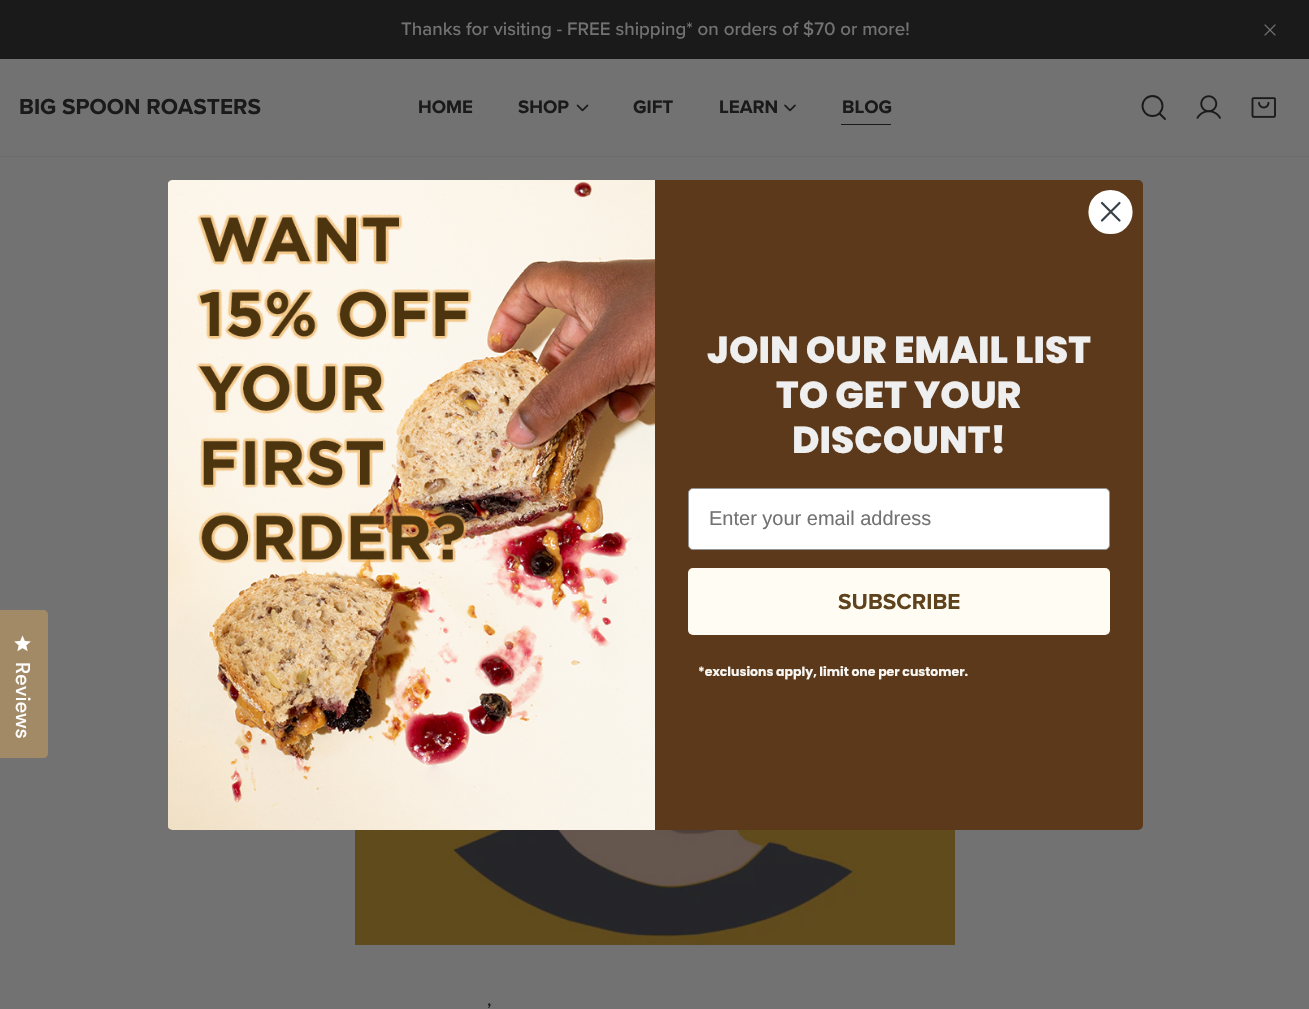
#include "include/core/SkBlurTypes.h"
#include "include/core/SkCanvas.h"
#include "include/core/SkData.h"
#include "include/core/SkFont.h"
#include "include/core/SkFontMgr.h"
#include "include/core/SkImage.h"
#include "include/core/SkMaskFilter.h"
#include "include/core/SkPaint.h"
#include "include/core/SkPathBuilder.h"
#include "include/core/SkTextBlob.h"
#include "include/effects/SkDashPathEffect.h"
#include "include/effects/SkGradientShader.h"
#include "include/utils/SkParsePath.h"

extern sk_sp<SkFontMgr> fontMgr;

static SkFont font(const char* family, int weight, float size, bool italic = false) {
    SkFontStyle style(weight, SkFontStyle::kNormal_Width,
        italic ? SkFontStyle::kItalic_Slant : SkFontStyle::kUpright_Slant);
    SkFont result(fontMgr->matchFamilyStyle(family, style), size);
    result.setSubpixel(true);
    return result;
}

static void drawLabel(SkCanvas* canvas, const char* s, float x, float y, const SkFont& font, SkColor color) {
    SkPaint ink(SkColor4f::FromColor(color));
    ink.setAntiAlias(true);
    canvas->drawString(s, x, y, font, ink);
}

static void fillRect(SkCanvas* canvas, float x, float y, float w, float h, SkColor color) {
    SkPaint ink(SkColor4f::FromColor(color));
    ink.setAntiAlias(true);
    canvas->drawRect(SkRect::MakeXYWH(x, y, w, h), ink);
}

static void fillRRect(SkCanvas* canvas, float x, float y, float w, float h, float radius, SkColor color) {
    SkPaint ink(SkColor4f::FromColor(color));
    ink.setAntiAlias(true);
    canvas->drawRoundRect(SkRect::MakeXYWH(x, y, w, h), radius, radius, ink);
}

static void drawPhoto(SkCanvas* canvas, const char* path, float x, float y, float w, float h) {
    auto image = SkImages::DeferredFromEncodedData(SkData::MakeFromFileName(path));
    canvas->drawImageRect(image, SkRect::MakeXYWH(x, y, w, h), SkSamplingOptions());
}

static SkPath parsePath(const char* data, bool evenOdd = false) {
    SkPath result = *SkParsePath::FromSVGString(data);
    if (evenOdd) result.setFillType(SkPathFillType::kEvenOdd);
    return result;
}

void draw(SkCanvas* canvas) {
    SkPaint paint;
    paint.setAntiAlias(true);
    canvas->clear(0xFF727272);
    fillRect(canvas, 0, 0, 1309, 59, 0xFF1A1A1A);
    SkFont font1 = font("Proxima Nova", 500, 18.75f);
    drawLabel(canvas, "Thanks for visiting - FREE shipping* on orders of $70 or more!", 401, 35, font1, 0xFF727272);
    drawPhoto(canvas, "assets/img1.png", 1264, 24, 12, 12);
    fillRect(canvas, 0, 156, 1309, 1, 0xFF6B6B6B);
    SkFont font2 = font("Proxima Nova", 700, 22.5f);
    drawLabel(canvas, "BIG SPOON ROASTERS", 19, 114, font2, 0xFF1A1A1A);
    SkFont font3 = font("Proxima Nova", 700, 18.75f);
    drawLabel(canvas, "HOME", 418, 113, font3, 0xFF1A1A1A);
    drawLabel(canvas, "SHOP", 518, 113, font3, 0xFF1A1A1A);
    drawPhoto(canvas, "assets/img2.png", 576, 104, 13, 8);
    drawLabel(canvas, "GIFT", 633, 113, font3, 0xFF1A1A1A);
    drawLabel(canvas, "LEARN", 719, 113, font3, 0xFF1A1A1A);
    drawPhoto(canvas, "assets/img3.png", 784, 104, 12, 8);
    drawLabel(canvas, "BLOG", 842, 113, font3, 0xFF1A1A1A);
    fillRect(canvas, 841, 124, 50, 1, 0xFF1A1A1A);
    paint.setStroke(true);
    paint.setStrokeWidth(1.9f);
    paint.setColor(0xFF1A1A1A);
    canvas->drawCircle(1152.5f, 106, 10, paint);
    paint.setStrokeCap(SkPaint::kRound_Cap);
    paint.setStrokeJoin(SkPaint::kRound_Join);
    canvas->drawPath(parsePath("M1165 119L1159.5 113.5"), paint);
    drawPhoto(canvas, "assets/img4.png", 1196, 95, 25, 24);
    drawPhoto(canvas, "assets/img5.png", 1251, 97, 25, 21);
    drawPhoto(canvas, "assets/img6.png", 355, 830, 600, 115);
    drawLabel(canvas, "’", 487, 1016, font1, 0xFF1A1A1A);
    fillRRect(canvas, 168, 180, 975, 650, 5, 0xFF5B391A);
    paint.setStroke(false);
    paint.setColor(0xFFFFFFFF);
    canvas->drawCircle(1110.5f, 212, 21, paint);
    paint.setStroke(true);
    paint.setStrokeWidth(2.2f);
    paint.setStrokeCap(SkPaint::kButt_Cap);
    paint.setStrokeJoin(SkPaint::kMiter_Join);
    canvas->drawCircle(1110.5f, 212, 21, paint);
    paint.setStrokeCap(SkPaint::kRound_Cap);
    paint.setStrokeJoin(SkPaint::kRound_Join);
    paint.setColor(0xFF373F47);
    canvas->drawPath(parsePath("M1102 203L1119.5 220.5M1102 220.5L1119.5 203Z"), paint);
    drawPhoto(canvas, "assets/img7.png", 168, 180, 487, 650);
    SkFont font4 = font("Poppins", 800, 37.5f);
    drawLabel(canvas, "JOIN OUR EMAIL LIST", 707, 363, font4, 0xFFEFEFEF);
    drawLabel(canvas, "TO GET YOUR", 776, 408, font4, 0xFFEFEFEF);
    drawLabel(canvas, "DISCOUNT!", 792, 453, font4, 0xFFEFEFEF);
    paint.setStroke(false);
    paint.setColor(0xFFFFFFFF);
    canvas->drawRoundRect(SkRect::MakeXYWH(688.5f, 488.5f, 421, 61), 4.5f, 4.5f, paint);
    paint.setStroke(true);
    paint.setStrokeWidth(1);
    paint.setStrokeCap(SkPaint::kButt_Cap);
    paint.setStrokeJoin(SkPaint::kMiter_Join);
    paint.setColor(0xFF949596);
    canvas->drawRoundRect(SkRect::MakeXYWH(688.5f, 488.5f, 421, 61), 4.5f, 4.5f, paint);
    SkFont font5 = font("Liberation Sans", 400, 20);
    drawLabel(canvas, "Enter your email address", 709, 525, font5, 0xFF727272);
    fillRRect(canvas, 688, 568, 422, 67, 5, 0xFFFFFCF4);
    drawLabel(canvas, "SUBSCRIBE", 838, 609, font2, 0xFF5E431D);
    SkFont font6 = font("Poppins", 700, 12.5f);
    drawLabel(canvas, "*exclusions apply, limit one per customer.", 698, 676, font6, 0xFFF7F6F2);
    paint.setStroke(false);
    paint.setColor(0xFFA38A66);
    canvas->drawPath(parsePath("M-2 610H43C46 610 48 612 48 615V753C48 756 46 758 43 758H-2Z"), paint);
    drawPhoto(canvas, "assets/img8.png", 14, 635, 17, 17);
    SkFont font7 = font("DM Sans", 500, 20);
    canvas->save();
    canvas->rotate(90.1f, 16, 662);
    drawLabel(canvas, "Reviews", 16, 662, font7, 0xFFFFFFFF);
    canvas->restore();
}
